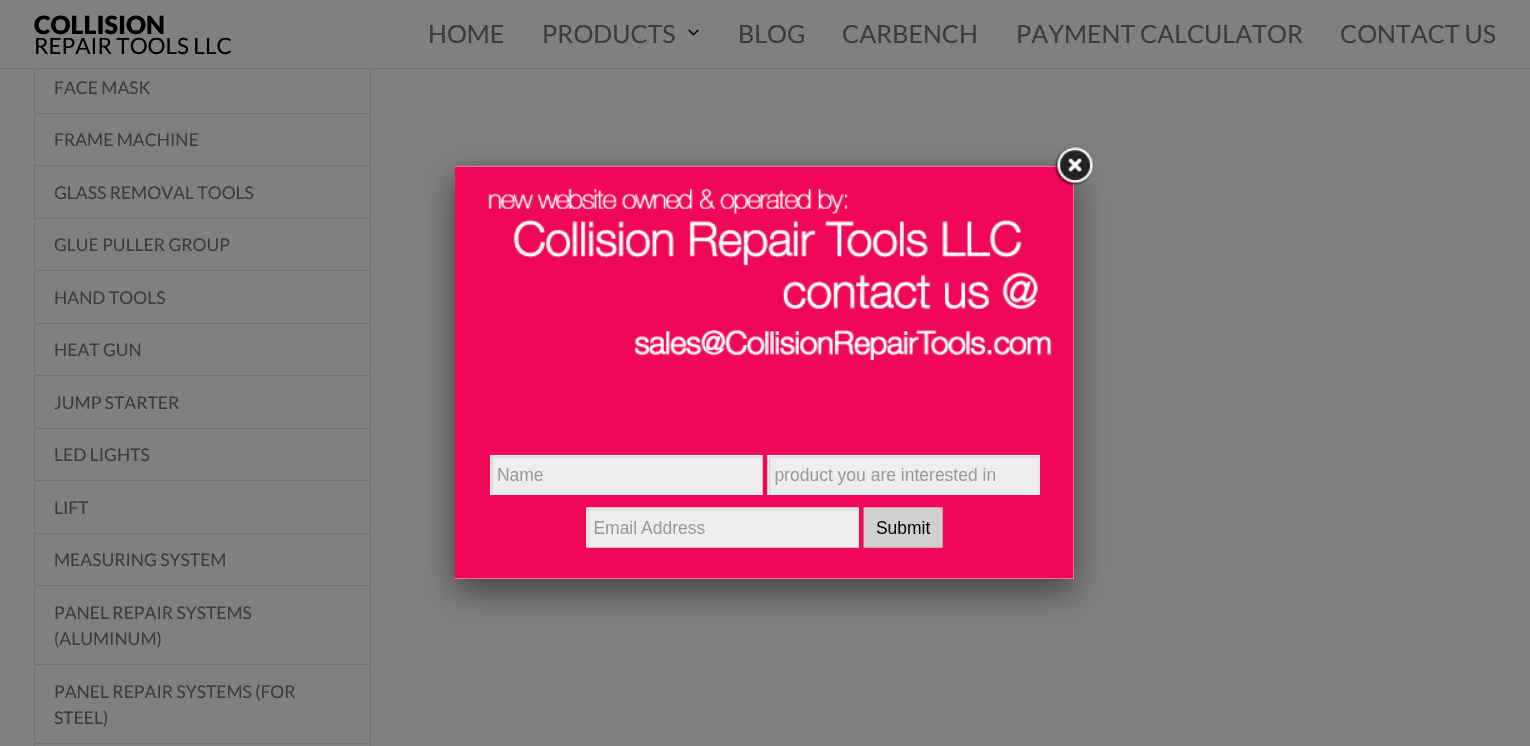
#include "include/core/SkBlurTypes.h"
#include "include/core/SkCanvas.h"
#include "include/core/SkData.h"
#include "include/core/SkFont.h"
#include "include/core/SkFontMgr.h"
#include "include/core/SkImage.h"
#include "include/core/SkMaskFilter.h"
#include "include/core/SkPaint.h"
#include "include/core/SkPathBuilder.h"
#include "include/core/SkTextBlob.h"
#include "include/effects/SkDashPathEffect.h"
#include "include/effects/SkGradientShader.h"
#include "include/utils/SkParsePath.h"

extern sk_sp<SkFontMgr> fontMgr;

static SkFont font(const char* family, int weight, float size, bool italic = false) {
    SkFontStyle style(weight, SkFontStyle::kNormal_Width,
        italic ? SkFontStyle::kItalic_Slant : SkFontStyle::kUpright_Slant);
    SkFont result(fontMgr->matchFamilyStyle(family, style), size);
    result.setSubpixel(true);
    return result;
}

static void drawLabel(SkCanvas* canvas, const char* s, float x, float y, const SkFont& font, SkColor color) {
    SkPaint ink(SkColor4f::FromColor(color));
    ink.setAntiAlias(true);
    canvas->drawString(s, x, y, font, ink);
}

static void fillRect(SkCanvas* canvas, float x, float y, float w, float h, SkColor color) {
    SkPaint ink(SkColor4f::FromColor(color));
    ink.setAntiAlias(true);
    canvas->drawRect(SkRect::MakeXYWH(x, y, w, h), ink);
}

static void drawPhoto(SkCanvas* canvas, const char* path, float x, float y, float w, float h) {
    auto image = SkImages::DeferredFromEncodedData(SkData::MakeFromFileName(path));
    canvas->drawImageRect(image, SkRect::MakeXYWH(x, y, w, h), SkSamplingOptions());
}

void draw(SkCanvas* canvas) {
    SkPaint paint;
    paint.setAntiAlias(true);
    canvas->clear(0xFF808080);
    paint.setStroke(true);
    paint.setStrokeWidth(1);
    paint.setColor(0xFF707070);
    canvas->drawRect(SkRect::MakeXYWH(34.5f, -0.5f, 336, 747), paint);
    fillRect(canvas, 34, 0, 337, 68, 0xFF808080);
    fillRect(canvas, 0, 68, 1530, 1, 0xFF737373);
    SkFont font1 = font("Lato", 900, 25);
    drawLabel(canvas, "COLLISION", 34, 34, font1, 0xFF000000);
    SkFont font2 = font("Lato", 400, 22.5f);
    drawLabel(canvas, "REPAIR TOOLS LLC", 34, 54, font2, 0xFF000000);
    SkFont font3 = font("Lato", 400, 25);
    drawLabel(canvas, "HOME", 428, 43, font3, 0xFF3C3C3C);
    drawLabel(canvas, "PRODUCTS", 542, 43, font3, 0xFF3C3C3C);
    drawPhoto(canvas, "assets/img1.png", 688, 29, 11, 7);
    drawLabel(canvas, "BLOG", 738, 43, font3, 0xFF3C3C3C);
    drawLabel(canvas, "CARBENCH", 842, 43, font3, 0xFF3C3C3C);
    drawLabel(canvas, "PAYMENT CALCULATOR", 1016, 43, font3, 0xFF3C3C3C);
    drawLabel(canvas, "CONTACT US", 1340, 43, font3, 0xFF3C3C3C);
    SkFont font4 = font("Lato", 400, 17.5f);
    drawLabel(canvas, "FACE MASK", 54, 94, font4, 0xFF3C3C3C);
    fillRect(canvas, 35, 113, 335, 1, 0xFF707070);
    drawLabel(canvas, "FRAME MACHINE", 54, 146, font4, 0xFF3C3C3C);
    fillRect(canvas, 35, 165, 335, 1, 0xFF707070);
    drawLabel(canvas, "GLASS REMOVAL TOOLS", 54, 199, font4, 0xFF3C3C3C);
    fillRect(canvas, 35, 218, 335, 1, 0xFF707070);
    drawLabel(canvas, "GLUE PULLER GROUP", 54, 251, font4, 0xFF3C3C3C);
    fillRect(canvas, 35, 270, 335, 1, 0xFF707070);
    drawLabel(canvas, "HAND TOOLS", 54, 304, font4, 0xFF3C3C3C);
    fillRect(canvas, 35, 323, 335, 1, 0xFF707070);
    drawLabel(canvas, "HEAT GUN", 54, 356, font4, 0xFF3C3C3C);
    fillRect(canvas, 35, 375, 335, 1, 0xFF707070);
    drawLabel(canvas, "JUMP STARTER", 54, 409, font4, 0xFF3C3C3C);
    fillRect(canvas, 35, 428, 335, 1, 0xFF707070);
    drawLabel(canvas, "LED LIGHTS", 54, 461, font4, 0xFF3C3C3C);
    fillRect(canvas, 35, 480, 335, 1, 0xFF707070);
    drawLabel(canvas, "LIFT", 54, 514, font4, 0xFF3C3C3C);
    fillRect(canvas, 35, 533, 335, 1, 0xFF707070);
    drawLabel(canvas, "MEASURING SYSTEM", 54, 566, font4, 0xFF3C3C3C);
    fillRect(canvas, 35, 585, 335, 1, 0xFF707070);
    drawLabel(canvas, "PANEL REPAIR SYSTEMS", 54, 619, font4, 0xFF3C3C3C);
    drawLabel(canvas, "(ALUMINUM)", 54, 645, font4, 0xFF3C3C3C);
    fillRect(canvas, 35, 664, 335, 1, 0xFF707070);
    drawLabel(canvas, "PANEL REPAIR SYSTEMS (FOR", 54, 698, font4, 0xFF3C3C3C);
    drawLabel(canvas, "STEEL)", 54, 724, font4, 0xFF3C3C3C);
    fillRect(canvas, 35, 743, 335, 1, 0xFF707070);
    paint.setStroke(false);
    paint.setColor(0x80000000);
    paint.setMaskFilter(SkMaskFilter::MakeBlur(kNormal_SkBlurStyle, 15.5f));
    canvas->drawRect(SkRect::MakeXYWH(455, 179, 619, 412), paint);
    paint.setMaskFilter(nullptr);
    fillRect(canvas, 455, 166, 619, 413, 0xFFF9F9F9);
    drawPhoto(canvas, "assets/img3.png", 455, 166, 619, 413);
    drawPhoto(canvas, "assets/img2.png", 1053, 146, 41, 41);
}
